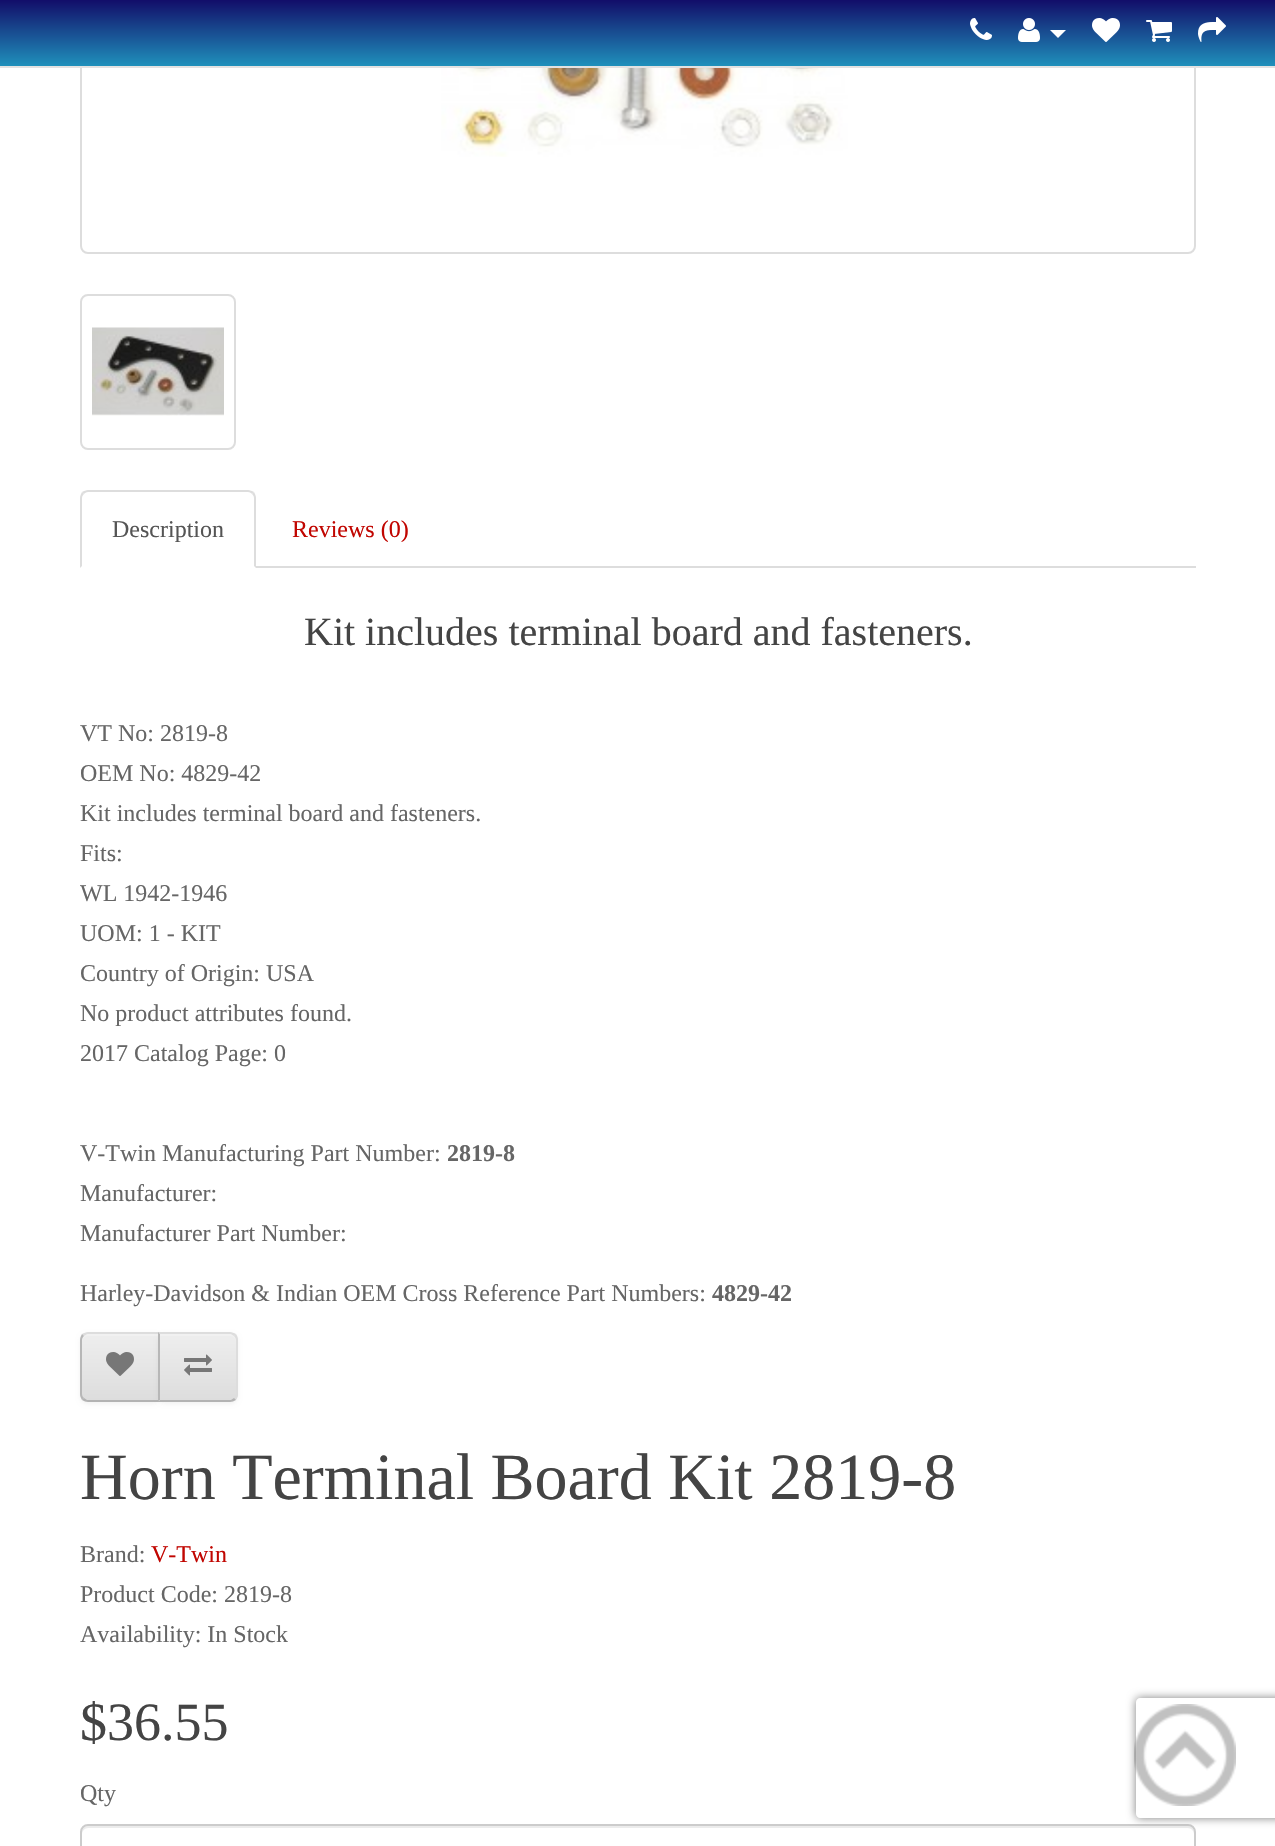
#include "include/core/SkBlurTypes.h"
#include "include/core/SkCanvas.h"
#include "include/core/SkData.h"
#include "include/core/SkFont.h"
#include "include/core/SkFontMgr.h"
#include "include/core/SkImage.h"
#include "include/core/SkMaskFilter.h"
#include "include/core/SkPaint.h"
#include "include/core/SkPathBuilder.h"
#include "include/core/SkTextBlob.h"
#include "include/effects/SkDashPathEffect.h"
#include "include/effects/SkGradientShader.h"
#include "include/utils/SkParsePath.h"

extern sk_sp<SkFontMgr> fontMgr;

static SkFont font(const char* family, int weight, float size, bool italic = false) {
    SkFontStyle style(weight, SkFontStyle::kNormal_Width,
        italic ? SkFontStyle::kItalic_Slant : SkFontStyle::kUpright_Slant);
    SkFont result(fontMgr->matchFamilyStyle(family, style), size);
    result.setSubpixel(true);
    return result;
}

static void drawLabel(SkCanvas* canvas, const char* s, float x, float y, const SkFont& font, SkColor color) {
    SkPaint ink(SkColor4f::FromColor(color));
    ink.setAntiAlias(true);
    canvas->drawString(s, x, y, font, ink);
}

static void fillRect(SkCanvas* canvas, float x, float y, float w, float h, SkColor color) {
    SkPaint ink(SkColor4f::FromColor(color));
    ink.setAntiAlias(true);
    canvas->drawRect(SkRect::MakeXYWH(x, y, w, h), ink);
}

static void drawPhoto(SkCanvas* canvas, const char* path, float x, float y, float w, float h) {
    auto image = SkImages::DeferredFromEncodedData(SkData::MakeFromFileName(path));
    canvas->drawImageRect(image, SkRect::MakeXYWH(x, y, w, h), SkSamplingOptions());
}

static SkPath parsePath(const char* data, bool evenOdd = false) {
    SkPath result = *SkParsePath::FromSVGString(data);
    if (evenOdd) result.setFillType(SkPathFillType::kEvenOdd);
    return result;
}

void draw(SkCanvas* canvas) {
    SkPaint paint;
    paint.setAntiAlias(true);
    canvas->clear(0xFFFFFFFF);
    paint.setStroke(true);
    paint.setStrokeWidth(2);
    paint.setColor(0xFFDDDDDD);
    canvas->drawRoundRect(SkRect::MakeXYWH(81, -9, 1114, 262), 7, 7, paint);
    paint.setStroke(false);
    {
        const SkColor colors[] = {0xFF120D69, 0xFF1F90BB};
        const float stops[] = {0, 1};
        const SkPoint ends[] = {{638, 0}, {638, 66}};
        paint.setShader(SkGradientShader::MakeLinear(ends, colors, stops, 2, SkTileMode::kClamp));
        paint.setAlpha(255);
    }
    canvas->drawRect(SkRect::MakeXYWH(0, 0, 1275, 66), paint);
    fillRect(canvas, 0, 66, 1275, 2, 0xFFE2E2E2);
    drawPhoto(canvas, "assets/img1.png", 970, 18, 22, 22);
    drawPhoto(canvas, "assets/img2.png", 1018, 18, 22, 24);
    paint.setShader(nullptr);
    paint.setColor(0xFFFFFFFF);
    canvas->drawPath(parsePath("M1050 30H1066L1058 38Z"), paint);
    drawPhoto(canvas, "assets/img3.png", 1092, 18, 28, 24);
    drawPhoto(canvas, "assets/img4.png", 1146, 20, 26, 22);
    drawPhoto(canvas, "assets/img5.png", 1198, 17, 28, 25);
    drawPhoto(canvas, "assets/img6.png", 441, 68, 407, 89);
    paint.setStroke(true);
    paint.setColor(0xFFDDDDDD);
    canvas->drawRoundRect(SkRect::MakeXYWH(81, 295, 154, 154), 7, 7, paint);
    drawPhoto(canvas, "assets/img7.png", 92, 327, 132, 89);
    fillRect(canvas, 256, 566, 940, 2, 0xFFDDDDDD);
    paint.setStroke(false);
    canvas->drawPath(parsePath("M88 490C86 490 84 491 82 492L84 494C85 493 86 492 88 492H248C250 492 251 493 252 494L254 492C252 491 250 490 248 490Z"), paint);
    canvas->drawPath(parsePath("M256 568V498C256 496 255 494 254 492L252 494C253 495 254 496 254 498V566Z"), paint);
    canvas->drawPath(parsePath("M80 568L82 566V498C82 496 83 495 84 494L82 492C81 494 80 496 80 498Z"), paint);
    SkFont font1 = font("Liberation Serif", 400, 24);
    drawLabel(canvas, "Description", 112, 537, font1, 0xFF555555);
    drawLabel(canvas, "Reviews (0)", 292, 537, font1, 0xFFC10601);
    SkFont font2 = font("Liberation Serif", 400, 40);
    drawLabel(canvas, "Kit includes terminal board and fasteners.", 304, 645, font2, 0xFF444444);
    drawLabel(canvas, "VT No: 2819-8", 80, 741, font1, 0xFF666666);
    drawLabel(canvas, "OEM No: 4829-42", 80, 781, font1, 0xFF666666);
    drawLabel(canvas, "Kit includes terminal board and fasteners.", 80, 821, font1, 0xFF666666);
    drawLabel(canvas, "Fits:", 80, 861, font1, 0xFF666666);
    drawLabel(canvas, "WL 1942-1946", 80, 901, font1, 0xFF666666);
    drawLabel(canvas, "UOM: 1 - KIT", 80, 941, font1, 0xFF666666);
    drawLabel(canvas, "Country of Origin: USA", 80, 981, font1, 0xFF666666);
    drawLabel(canvas, "No product attributes found.", 80, 1021, font1, 0xFF666666);
    drawLabel(canvas, "2017 Catalog Page: 0", 80, 1061, font1, 0xFF666666);
    drawLabel(canvas, "V-Twin Manufacturing Part Number:", 80, 1161, font1, 0xFF666666);
    SkFont font3 = font("Liberation Serif", 700, 24);
    drawLabel(canvas, "2819-8", 447, 1161, font3, 0xFF666666);
    drawLabel(canvas, "Manufacturer:", 80, 1201, font1, 0xFF666666);
    drawLabel(canvas, "Manufacturer Part Number:", 80, 1241, font1, 0xFF666666);
    drawLabel(canvas, "Harley-Davidson & Indian OEM Cross Reference Part Numbers:", 80, 1301, font1, 0xFF666666);
    drawLabel(canvas, "4829-42", 712, 1301, font3, 0xFF666666);
    paint.setColor(0x0D000000);
    paint.setMaskFilter(SkMaskFilter::MakeBlur(kNormal_SkBlurStyle, 2));
    canvas->drawRoundRect(SkRect::MakeXYWH(80, 1334, 80, 70), 8, 8, paint);
    paint.setMaskFilter(nullptr);
    canvas->save();
    canvas->clipPath(parsePath("M88 1332H160V1402H88C83.5 1402 80 1398.5 80 1394V1340C80 1335.5 83.5 1332 88 1332Z"), true);
    {
        const SkColor colors[] = {0xFFEEEEEE, 0xFFDDDDDD};
        const float stops[] = {0, 1};
        const SkPoint ends[] = {{120, 1334}, {120, 1400}};
        paint.setShader(SkGradientShader::MakeLinear(ends, colors, stops, 2, SkTileMode::kClamp));
        paint.setAlpha(255);
    }
    canvas->drawRect(SkRect::MakeXYWH(80, 1334, 78, 66), paint);
    canvas->restore();
    paint.setShader(nullptr);
    paint.setColor(0xFFF1F1F1);
    canvas->drawPath(parsePath("M88 1336H158V1334H88C85 1334 82 1337 82 1340V1342C82 1339 85 1336 88 1336Z"), paint);
    paint.setColor(0xFFDDDDDD);
    canvas->drawPath(parsePath("M88 1332C86 1332 84 1333 82 1334L84 1336L87 1334H158L160 1332Z"), paint);
    paint.setColor(0xFFB3B3B3);
    canvas->drawPath(parsePath("M160 1402L158 1400H87L84 1398L82 1400C84 1401 86 1402 88 1402Z"), paint);
    paint.setColor(0xFFB7B7B7);
    canvas->drawPath(parsePath("M80 1340V1394C80 1396 81 1398 82 1400L84 1398C83 1397 82 1396 82 1394V1340C82 1338 83 1337 84 1336L82 1334C81 1336 80 1338 80 1340Z"), paint);
    drawPhoto(canvas, "assets/img8.png", 106, 1352, 28, 24);
    paint.setColor(0x0D000000);
    paint.setMaskFilter(SkMaskFilter::MakeBlur(kNormal_SkBlurStyle, 2));
    canvas->drawRoundRect(SkRect::MakeXYWH(158, 1334, 80, 70), 8, 8, paint);
    paint.setMaskFilter(nullptr);
    canvas->save();
    canvas->clipPath(parsePath("M158 1332H230C234.5 1332 238 1335.5 238 1340V1394C238 1398.5 234.5 1402 230 1402H158Z"), true);
    {
        const SkColor colors[] = {0xFFEEEEEE, 0xFFDDDDDD};
        const float stops[] = {0, 1};
        const SkPoint ends[] = {{198, 1334}, {198, 1400}};
        paint.setShader(SkGradientShader::MakeLinear(ends, colors, stops, 2, SkTileMode::kClamp));
        paint.setAlpha(255);
    }
    canvas->drawRect(SkRect::MakeXYWH(160, 1334, 78, 66), paint);
    canvas->restore();
    paint.setShader(nullptr);
    paint.setColor(0xFFF1F1F1);
    canvas->drawPath(parsePath("M160 1336H230C233 1336 236 1339 236 1342V1340C236 1337 233 1334 230 1334H160Z"), paint);
    paint.setColor(0xFFDDDDDD);
    canvas->drawPath(parsePath("M158 1332L160 1334H231L234 1336L236 1334C234 1333 232 1332 230 1332Z"), paint);
    canvas->drawPath(parsePath("M238 1394V1340C238 1338 237 1336 236 1334L234 1336C235 1337 236 1338 236 1340V1394C236 1396 235 1397 234 1398L236 1400C237 1398 238 1396 238 1394Z"), paint);
    paint.setColor(0xFFB3B3B3);
    canvas->drawPath(parsePath("M230 1402C232 1402 234 1401 236 1400L234 1398L231 1400H160L158 1402Z"), paint);
    paint.setColor(0xFFB7B7B7);
    canvas->drawPath(parsePath("M158 1332V1402L160 1400V1334Z"), paint);
    drawPhoto(canvas, "assets/img9.png", 184, 1354, 28, 22);
    SkFont font4 = font("Liberation Serif", 400, 66);
    drawLabel(canvas, "Horn Terminal Board Kit 2819-8", 80, 1499, font4, 0xFF444444);
    drawLabel(canvas, "Brand:", 80, 1562, font1, 0xFF666666);
    drawLabel(canvas, "V-Twin", 151, 1562, font1, 0xFFC10601);
    drawLabel(canvas, "Product Code: 2819-8", 80, 1602, font1, 0xFF666666);
    drawLabel(canvas, "Availability: In Stock", 80, 1642, font1, 0xFF666666);
    SkFont font5 = font("Liberation Serif", 400, 54);
    drawLabel(canvas, "$36.55", 80, 1740, font5, 0xFF444444);
    drawLabel(canvas, "Qty", 80, 1801, font1, 0xFF666666);
    paint.setColor(0xFFECECEC);
    canvas->drawPath(parsePath("M88 1828H1188C1191 1828 1194 1831 1194 1834V1832C1194 1829 1191 1826 1188 1826H88C85 1826 82 1829 82 1832V1834C82 1831 85 1828 88 1828Z"), paint);
    paint.setStroke(true);
    paint.setColor(0xFFCCCCCC);
    canvas->drawRoundRect(SkRect::MakeXYWH(81, 1825, 1114, 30), 7, 7, paint);
    drawPhoto(canvas, "assets/img10.png", 1134, 1704, 102, 102);
    canvas->save();
    canvas->clipPath(parsePath("M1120 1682H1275V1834H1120ZM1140 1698H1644C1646 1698 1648 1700 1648 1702V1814C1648 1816 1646 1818 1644 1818H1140C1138 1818 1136 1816 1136 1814V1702C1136 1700 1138 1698 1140 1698Z", true), true);
    paint.setStroke(false);
    paint.setColor(0xFF808080);
    paint.setMaskFilter(SkMaskFilter::MakeBlur(kNormal_SkBlurStyle, 5));
    canvas->drawRoundRect(SkRect::MakeXYWH(1136, 1698, 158, 120), 4, 4, paint);
    paint.setMaskFilter(nullptr);
    canvas->restore();
}
